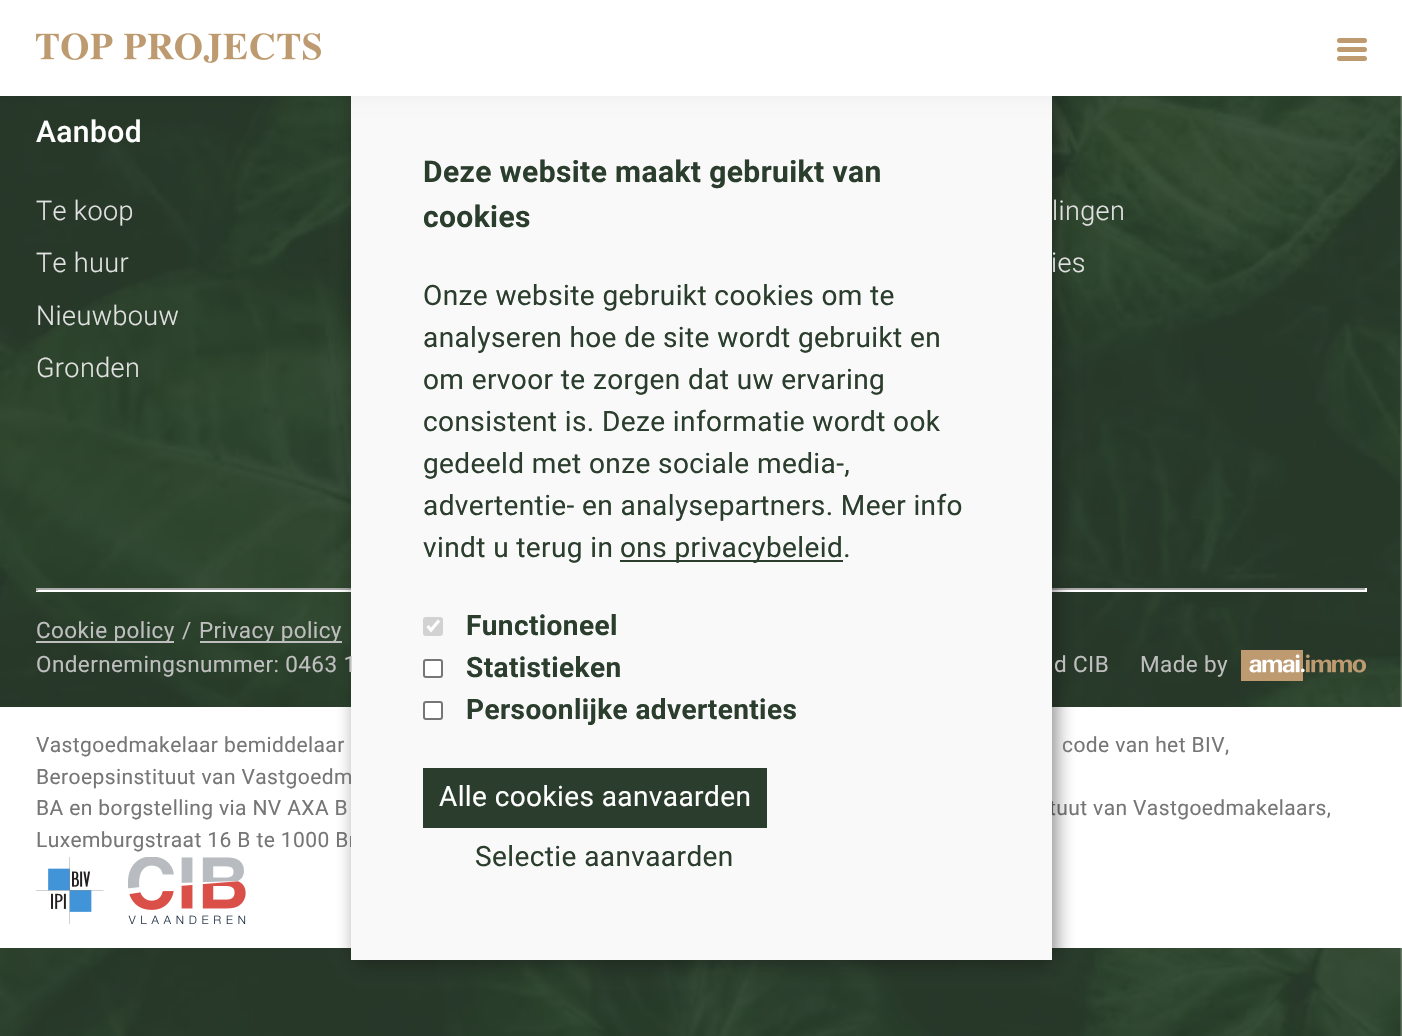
#include "include/core/SkBlurTypes.h"
#include "include/core/SkCanvas.h"
#include "include/core/SkData.h"
#include "include/core/SkFont.h"
#include "include/core/SkFontMgr.h"
#include "include/core/SkImage.h"
#include "include/core/SkMaskFilter.h"
#include "include/core/SkPaint.h"
#include "include/core/SkPathBuilder.h"
#include "include/core/SkTextBlob.h"
#include "include/effects/SkDashPathEffect.h"
#include "include/effects/SkGradientShader.h"
#include "include/utils/SkParsePath.h"

extern sk_sp<SkFontMgr> fontMgr;

static SkFont font(const char* family, int weight, float size, bool italic = false) {
    SkFontStyle style(weight, SkFontStyle::kNormal_Width,
        italic ? SkFontStyle::kItalic_Slant : SkFontStyle::kUpright_Slant);
    SkFont result(fontMgr->matchFamilyStyle(family, style), size);
    result.setSubpixel(true);
    return result;
}

static void drawTracked(SkCanvas* canvas, const char* s, float x, float y, const SkFont& font, const SkPaint& ink, float letter, float word) {
    std::vector<SkGlyphID> glyphs(font.countText(s, strlen(s), SkTextEncoding::kUTF8));
    std::vector<float> xs(glyphs.size());
    font.textToGlyphs(s, strlen(s), SkTextEncoding::kUTF8, glyphs);
    font.getXPos(glyphs, xs, x);
    float extra = 0;
    for (size_t i = 0; i < glyphs.size(); i++) {
        xs[i] += extra;
        extra += letter + word * (glyphs[i] == font.unicharToGlyph(' '));
    }
    canvas->drawTextBlob(SkTextBlob::MakeFromPosHGlyphs(glyphs, xs, y, font), 0, 0, ink);
}

static void fillRect(SkCanvas* canvas, float x, float y, float w, float h, SkColor color) {
    SkPaint ink(SkColor4f::FromColor(color));
    ink.setAntiAlias(true);
    canvas->drawRect(SkRect::MakeXYWH(x, y, w, h), ink);
}

static void fillRRect(SkCanvas* canvas, float x, float y, float w, float h, float radius, SkColor color) {
    SkPaint ink(SkColor4f::FromColor(color));
    ink.setAntiAlias(true);
    canvas->drawRoundRect(SkRect::MakeXYWH(x, y, w, h), radius, radius, ink);
}

static void drawPhoto(SkCanvas* canvas, const char* path, float x, float y, float w, float h) {
    auto image = SkImages::DeferredFromEncodedData(SkData::MakeFromFileName(path));
    canvas->drawImageRect(image, SkRect::MakeXYWH(x, y, w, h), SkSamplingOptions());
}

static SkPath parsePath(const char* data, bool evenOdd = false) {
    SkPath result = *SkParsePath::FromSVGString(data);
    if (evenOdd) result.setFillType(SkPathFillType::kEvenOdd);
    return result;
}

void draw(SkCanvas* canvas) {
    SkPaint paint;
    paint.setAntiAlias(true);
    canvas->clear(0xFFFFFFFF);
    drawPhoto(canvas, "assets/img2.png", 0, 96, 1402, 940);
    fillRect(canvas, 36, 588, 1331, 2, 0xFFAAAAAA);
    fillRect(canvas, 1365, 588, 2, 3, 0xFFFFFFFF);
    fillRect(canvas, 36, 590, 1331, 2, 0xFFFFFFFF);
    fillRect(canvas, 0, 707, 1402, 241, 0xFFFFFFFF);
    SkFont font1 = font("Roboto", 400, 21);
    paint.setColor(0xFF767676);
    drawTracked(canvas, "tuut van Vastgoedmakelaars,", 1049, 815, font1, paint, 0.4f, 0);
    drawTracked(canvas, "Luxemburgstraat 16 B te 1000 Br", 36, 847, font1, paint, 0.4f, 0);
    fillRect(canvas, 200, 641, 142, 2, 0xFFBEBEBE);
    paint.setColor(0x80111111);
    paint.setMaskFilter(SkMaskFilter::MakeBlur(kNormal_SkBlurStyle, 9));
    canvas->drawRect(SkRect::MakeXYWH(356, 81, 700, 882), paint);
    paint.setMaskFilter(nullptr);
    fillRect(canvas, 351, 96, 701, 864, 0xFFF9F9F9);
    paint.setColor(0x0D000000);
    paint.setMaskFilter(SkMaskFilter::MakeBlur(kNormal_SkBlurStyle, 7.5f));
    canvas->drawRect(SkRect::MakeXYWH(0, 0, 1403, 96), paint);
    paint.setMaskFilter(nullptr);
    fillRect(canvas, 0, 0, 1402, 96, 0xFFFFFFFF);
    drawPhoto(canvas, "assets/img1.png", 36, 33, 285, 30);
    fillRRect(canvas, 1337, 38, 30, 5, 2.5f, 0xFFBD9A6F);
    fillRRect(canvas, 1337, 47, 30, 5, 2.5f, 0xFFBD9A6F);
    fillRRect(canvas, 1337, 56, 30, 5, 2.5f, 0xFFBD9A6F);
    SkFont font2 = font("Roboto", 500, 30);
    paint.setColor(0xFFFFFFFF);
    drawTracked(canvas, "Aanbod", 36, 142, font2, paint, 0.4f, 0);
    SkFont font3 = font("Roboto", 300, 27);
    paint.setColor(0xFFE2E2E2);
    drawTracked(canvas, "Te koop", 36, 220, font3, paint, 0.4f, 0);
    drawTracked(canvas, "Te huur", 36, 272, font3, paint, 0.4f, 0);
    drawTracked(canvas, "Nieuwbouw", 36, 325, font3, paint, 0.4f, 0);
    drawTracked(canvas, "Gronden", 36, 377, font3, paint, 0.4f, 0);
    drawTracked(canvas, "lingen", 1052, 220, font3, paint, 0.4f, 0);
    drawTracked(canvas, "ies", 1051, 272, font3, paint, 0.4f, 0);
    fillRect(canvas, 36, 588, 2, 3, 0xFFAAAAAA);
    fillRect(canvas, 36, 641, 138, 2, 0xFFBEBEBE);
    SkFont font4 = font("Roboto", 400, 22.5f);
    paint.setColor(0xFFBEBEBE);
    drawTracked(canvas, "Cookie policy", 36, 638, font4, paint, 0.4f, 0);
    drawTracked(canvas, "/", 182, 638, font4, paint, 0.4f, 0);
    drawTracked(canvas, "Privacy policy", 199, 638, font4, paint, 0.4f, 0);
    drawTracked(canvas, "Ondernemingsnummer: 0463 1", 36, 672, font4, paint, 0.4f, 0);
    drawTracked(canvas, "d CIB", 1054, 672, font4, paint, 0.4f, 0);
    drawTracked(canvas, "Made by", 1140, 672, font4, paint, 0.4f, 0);
    drawPhoto(canvas, "assets/img3.png", 1241, 650, 126, 31);
    paint.setColor(0xFF767676);
    drawTracked(canvas, "Vastgoedmakelaar bemiddelaar", 36, 752, font1, paint, 0.4f, 0);
    drawTracked(canvas, "code van het BIV,", 1062, 752, font1, paint, 0.4f, 0);
    drawTracked(canvas, "Beroepsinstituut van Vastgoedm", 36, 784, font1, paint, 0.4f, 0);
    drawTracked(canvas, "BA en borgstelling via NV AXA B", 36, 815, font1, paint, 0.4f, 0);
    drawPhoto(canvas, "assets/img4.png", 36, 857, 68, 67);
    drawPhoto(canvas, "assets/img5.png", 128, 857, 118, 67);
    SkFont font5 = font("Roboto", 700, 30);
    paint.setColor(0xFF2B3E2D);
    drawTracked(canvas, "Deze website maakt gebruikt van", 423, 182, font5, paint, 0.4f, 0);
    drawTracked(canvas, "cookies", 423, 227, font5, paint, 0.4f, 0);
    SkFont font6 = font("Roboto", 400, 28);
    drawTracked(canvas, "Onze website gebruikt cookies om te", 423, 305, font6, paint, 0.4f, 0);
    drawTracked(canvas, "analyseren hoe de site wordt gebruikt en", 423, 347, font6, paint, 0.4f, 0);
    drawTracked(canvas, "om ervoor te zorgen dat uw ervaring", 423, 389, font6, paint, 0.4f, 0);
    drawTracked(canvas, "consistent is. Deze informatie wordt ook", 423, 431, font6, paint, 0.4f, 0);
    drawTracked(canvas, "gedeeld met onze sociale media-,", 423, 473, font6, paint, 0.4f, 0);
    drawTracked(canvas, "advertentie- en analysepartners. Meer info", 423, 515, font6, paint, 0.4f, 0);
    drawTracked(canvas, "vindt u terug in", 423, 557, font6, paint, 0.4f, 0);
    fillRect(canvas, 620, 560, 223, 2, 0xFF2B3E2D);
    drawTracked(canvas, "ons privacybeleid.", 620, 557, font6, paint, 0.4f, 0);
    fillRRect(canvas, 423, 617, 20, 19, 3, 0xFFD2D2D2);
    paint.setStroke(true);
    paint.setStrokeWidth(3.1f);
    paint.setColor(0xFFFFFFFF);
    canvas->drawPath(parsePath("M427.5 626L431 630L439 620.5"), paint);
    SkFont font7 = font("Roboto", 700, 28);
    paint.setStroke(false);
    paint.setColor(0xFF2B3E2D);
    drawTracked(canvas, "Functioneel", 466, 635, font7, paint, 0.4f, 0);
    paint.setColor(0xFFFFFFFF);
    canvas->drawRoundRect(SkRect::MakeXYWH(424, 660, 18, 17), 2, 2, paint);
    paint.setStroke(true);
    paint.setStrokeWidth(2);
    paint.setColor(0xFF767676);
    canvas->drawRoundRect(SkRect::MakeXYWH(424, 660, 18, 17), 2, 2, paint);
    paint.setStroke(false);
    paint.setColor(0xFF2B3E2D);
    drawTracked(canvas, "Statistieken", 466, 677, font7, paint, 0.4f, 0);
    paint.setColor(0xFFFFFFFF);
    canvas->drawRoundRect(SkRect::MakeXYWH(424, 702, 18, 17), 2, 2, paint);
    paint.setStroke(true);
    paint.setColor(0xFF767676);
    canvas->drawRoundRect(SkRect::MakeXYWH(424, 702, 18, 17), 2, 2, paint);
    paint.setStroke(false);
    paint.setColor(0xFF2B3E2D);
    drawTracked(canvas, "Persoonlijke advertenties", 466, 719, font7, paint, 0.4f, 0);
    fillRect(canvas, 423, 768, 344, 60, 0xFF2B3E2D);
    paint.setColor(0xFFFFFFFF);
    drawTracked(canvas, "Alle cookies aanvaarden", 439, 806, font6, paint, 0.4f, 0);
    paint.setColor(0xFF2B3E2D);
    drawTracked(canvas, "Selectie aanvaarden", 475, 866, font6, paint, 0.4f, 0);
}
